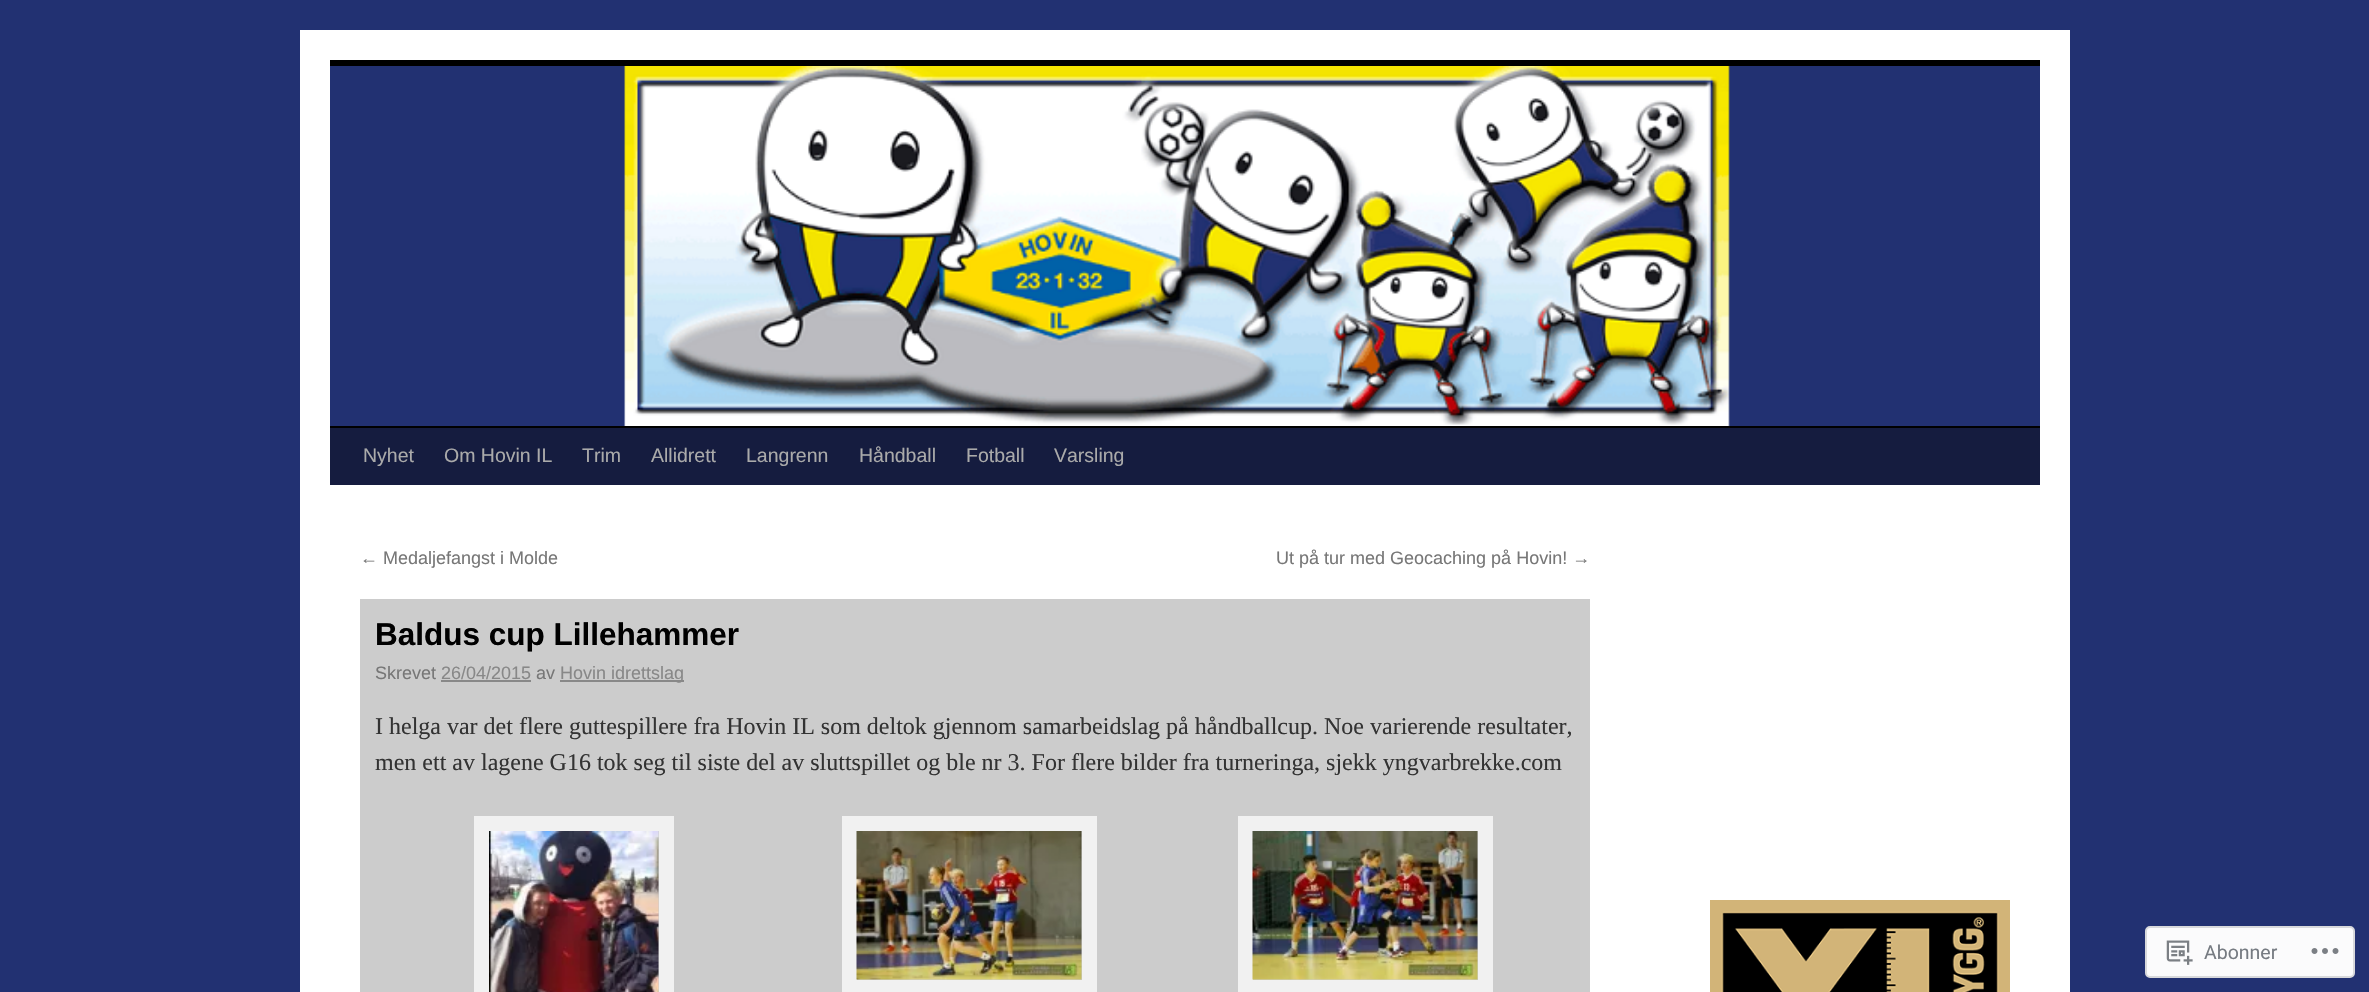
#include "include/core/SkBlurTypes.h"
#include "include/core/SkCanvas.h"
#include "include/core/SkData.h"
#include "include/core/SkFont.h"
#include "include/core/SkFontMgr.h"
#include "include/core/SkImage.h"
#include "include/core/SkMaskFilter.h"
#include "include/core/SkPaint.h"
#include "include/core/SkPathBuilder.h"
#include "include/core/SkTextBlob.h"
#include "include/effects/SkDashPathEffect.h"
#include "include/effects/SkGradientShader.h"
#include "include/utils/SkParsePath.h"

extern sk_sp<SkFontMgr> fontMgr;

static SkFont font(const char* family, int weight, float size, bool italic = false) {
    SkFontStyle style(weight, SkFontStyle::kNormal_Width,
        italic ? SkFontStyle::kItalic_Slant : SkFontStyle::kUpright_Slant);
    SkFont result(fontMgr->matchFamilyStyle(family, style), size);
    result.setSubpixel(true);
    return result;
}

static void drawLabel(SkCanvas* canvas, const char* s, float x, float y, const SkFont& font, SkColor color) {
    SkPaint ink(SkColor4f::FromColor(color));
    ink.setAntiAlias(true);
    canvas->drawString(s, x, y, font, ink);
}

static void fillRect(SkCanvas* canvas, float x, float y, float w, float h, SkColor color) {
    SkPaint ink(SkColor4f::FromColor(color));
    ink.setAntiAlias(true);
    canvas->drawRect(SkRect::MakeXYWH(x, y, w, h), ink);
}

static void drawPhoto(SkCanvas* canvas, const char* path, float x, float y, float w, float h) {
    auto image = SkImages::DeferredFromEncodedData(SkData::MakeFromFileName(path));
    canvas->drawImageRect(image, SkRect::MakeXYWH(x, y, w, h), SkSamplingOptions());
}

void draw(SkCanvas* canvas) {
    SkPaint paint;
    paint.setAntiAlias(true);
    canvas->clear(0xFF223172);
    fillRect(canvas, 300, 30, 1770, 962, 0xFFFFFFFF);
    fillRect(canvas, 330, 60, 1710, 6, 0xFF000000);
    fillRect(canvas, 330, 426, 1710, 2, 0xFF000000);
    drawPhoto(canvas, "assets/img1.png", 330, 66, 1710, 360);
    fillRect(canvas, 330, 428, 1710, 57, 0xFF151C3F);
    SkFont font1 = font("Liberation Sans", 400, 19.5f);
    drawLabel(canvas, "Nyhet", 363, 462, font1, 0xFFAAAAAA);
    drawLabel(canvas, "Om Hovin IL", 444, 462, font1, 0xFFAAAAAA);
    drawLabel(canvas, "Trim", 582, 462, font1, 0xFFAAAAAA);
    drawLabel(canvas, "Allidrett", 651, 462, font1, 0xFFAAAAAA);
    drawLabel(canvas, "Langrenn", 746, 462, font1, 0xFFAAAAAA);
    drawLabel(canvas, "Håndball", 859, 462, font1, 0xFFAAAAAA);
    drawLabel(canvas, "Fotball", 966, 462, font1, 0xFFAAAAAA);
    drawLabel(canvas, "Varsling", 1054, 462, font1, 0xFFAAAAAA);
    SkFont font2 = font("Liberation Sans", 400, 18);
    drawLabel(canvas, "← Medaljefangst i Molde", 360, 564, font2, 0xFF777777);
    drawLabel(canvas, "Ut på tur med Geocaching på Hovin! →", 1276, 564, font2, 0xFF777777);
    fillRect(canvas, 360, 599, 1230, 393, 0xFFCCCCCC);
    SkFont font3 = font("Liberation Sans", 700, 31.5f);
    drawLabel(canvas, "Baldus cup Lillehammer", 375, 645, font3, 0xFF000000);
    drawLabel(canvas, "Skrevet", 375, 679, font2, 0xFF777777);
    drawLabel(canvas, "26/04/2015", 441, 679, font2, 0xFF888888);
    fillRect(canvas, 441, 680, 90, 2, 0xFF888888);
    drawLabel(canvas, "av", 536, 679, font2, 0xFF777777);
    fillRect(canvas, 560, 680, 124, 2, 0xFF888888);
    drawLabel(canvas, "Hovin idrettslag", 560, 679, font2, 0xFF888888);
    SkFont font4 = font("Liberation Serif", 400, 24);
    drawLabel(canvas, "I helga var det flere guttespillere fra Hovin IL som deltok gjennom samarbeidslag på håndballcup. Noe varierende resultater,", 375, 734, font4, 0xFF333333);
    drawLabel(canvas, "men ett av lagene G16 tok seg til siste del av sluttspillet og ble nr 3. For flere bilder fra turneringa, sjekk yngvarbrekke.com", 375, 770, font4, 0xFF333333);
    paint.setStroke(true);
    paint.setStrokeWidth(15);
    paint.setColor(0xFFF1F1F1);
    canvas->drawRect(SkRect::MakeXYWH(481.5f, 823.5f, 185, 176), paint);
    drawPhoto(canvas, "assets/img2.png", 489, 831, 170, 161);
    canvas->drawRect(SkRect::MakeXYWH(849.5f, 823.5f, 240, 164), paint);
    drawPhoto(canvas, "assets/img3.png", 856, 831, 226, 149);
    canvas->drawRect(SkRect::MakeXYWH(1245.5f, 823.5f, 240, 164), paint);
    drawPhoto(canvas, "assets/img4.png", 1252, 831, 226, 149);
    drawPhoto(canvas, "assets/img5.png", 1710, 900, 300, 92);
    paint.setStroke(false);
    paint.setColor(0xFFFBFBFC);
    canvas->drawRoundRect(SkRect::MakeXYWH(2146, 927, 208, 50), 4, 4, paint);
    paint.setStroke(true);
    paint.setStrokeWidth(2);
    paint.setColor(0xFFD8D9DC);
    canvas->drawRoundRect(SkRect::MakeXYWH(2146, 927, 208, 50), 4, 4, paint);
    drawPhoto(canvas, "assets/img6.png", 2166, 940, 27, 25);
    SkFont font5 = font("Roboto", 400, 19.5f);
    drawLabel(canvas, "Abonner", 2204, 959, font5, 0xFF767B82);
    drawPhoto(canvas, "assets/img7.png", 2311, 948, 28, 6);
}
